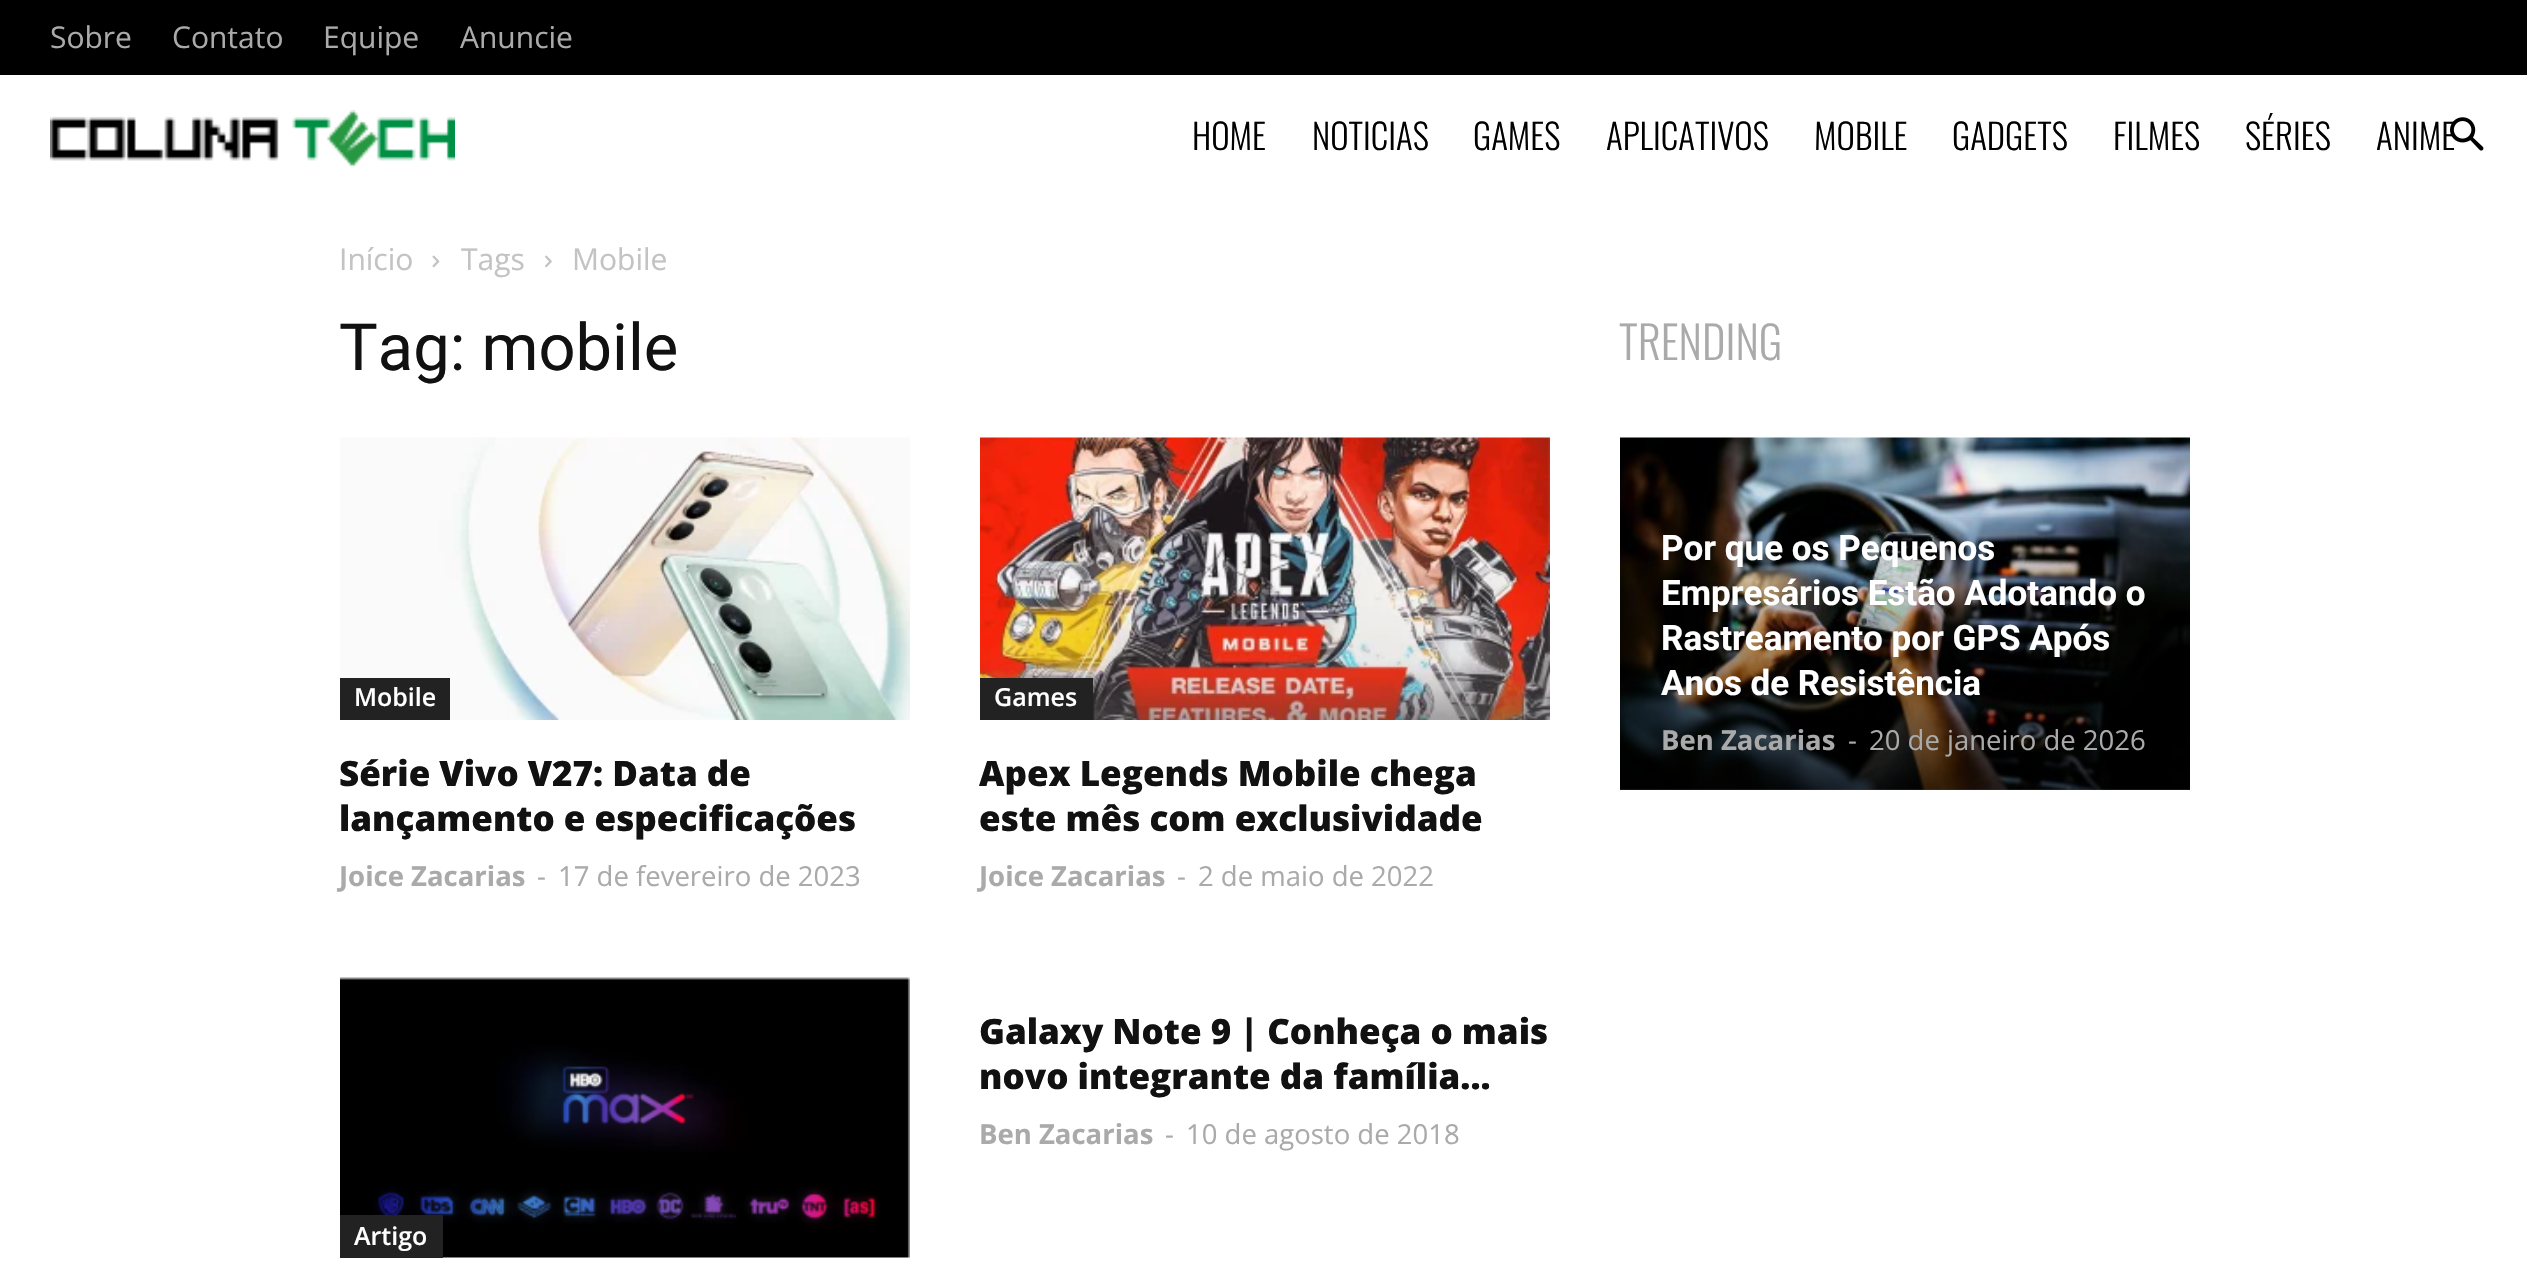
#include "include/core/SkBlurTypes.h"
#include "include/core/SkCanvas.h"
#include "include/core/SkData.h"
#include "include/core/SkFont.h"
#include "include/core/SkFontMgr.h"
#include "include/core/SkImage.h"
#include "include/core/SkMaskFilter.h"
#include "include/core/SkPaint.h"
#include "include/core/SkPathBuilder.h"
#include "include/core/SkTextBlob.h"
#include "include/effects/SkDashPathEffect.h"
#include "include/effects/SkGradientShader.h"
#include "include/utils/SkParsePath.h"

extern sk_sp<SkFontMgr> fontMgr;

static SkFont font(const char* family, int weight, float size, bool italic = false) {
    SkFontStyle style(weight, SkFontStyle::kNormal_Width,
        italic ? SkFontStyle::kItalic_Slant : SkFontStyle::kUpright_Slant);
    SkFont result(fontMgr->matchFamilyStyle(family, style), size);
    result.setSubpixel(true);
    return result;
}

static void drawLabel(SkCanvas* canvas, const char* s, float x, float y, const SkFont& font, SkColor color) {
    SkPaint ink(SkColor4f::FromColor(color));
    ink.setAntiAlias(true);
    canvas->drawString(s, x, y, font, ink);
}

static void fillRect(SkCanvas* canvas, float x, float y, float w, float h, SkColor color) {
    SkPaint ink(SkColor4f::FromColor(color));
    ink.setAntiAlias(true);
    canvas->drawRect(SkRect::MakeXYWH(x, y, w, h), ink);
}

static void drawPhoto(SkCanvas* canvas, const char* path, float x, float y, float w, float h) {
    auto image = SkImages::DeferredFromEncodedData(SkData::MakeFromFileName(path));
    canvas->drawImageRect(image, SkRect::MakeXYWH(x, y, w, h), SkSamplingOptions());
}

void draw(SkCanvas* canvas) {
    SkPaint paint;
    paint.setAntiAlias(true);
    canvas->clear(0xFFFFFFFF);
    fillRect(canvas, 0, 0, 2527, 75, 0xFF000000);
    SkFont font1 = font("Open Sans", 400, 30);
    drawLabel(canvas, "Sobre", 50, 48, font1, 0xFFAAAAAA);
    drawLabel(canvas, "Contato", 172, 48, font1, 0xFFAAAAAA);
    drawLabel(canvas, "Equipe", 323, 48, font1, 0xFFAAAAAA);
    drawLabel(canvas, "Anuncie", 460, 48, font1, 0xFFAAAAAA);
    drawPhoto(canvas, "assets/img1.png", 50, 110, 405, 58);
    SkFont font2 = font("Oswald", 300, 35);
    drawLabel(canvas, "HOME", 1192, 150, font2, 0xFF000000);
    drawLabel(canvas, "NOTICIAS", 1312, 150, font2, 0xFF000000);
    drawLabel(canvas, "GAMES", 1473, 150, font2, 0xFF000000);
    drawLabel(canvas, "APLICATIVOS", 1606, 150, font2, 0xFF000000);
    drawLabel(canvas, "MOBILE", 1814, 150, font2, 0xFF000000);
    drawLabel(canvas, "GADGETS", 1952, 150, font2, 0xFF000000);
    drawLabel(canvas, "FILMES", 2113, 150, font2, 0xFF000000);
    drawLabel(canvas, "SÉRIES", 2245, 150, font2, 0xFF000000);
    drawLabel(canvas, "ANIME", 2376, 150, font2, 0xFF000000);
    drawPhoto(canvas, "assets/img2.png", 2450, 117, 34, 34);
    drawLabel(canvas, "Início", 339, 270, font1, 0xFFC3C3C3);
    drawPhoto(canvas, "assets/img3.png", 432, 255, 8, 13);
    drawLabel(canvas, "Tags", 461, 270, font1, 0xFFC3C3C3);
    drawPhoto(canvas, "assets/img4.png", 545, 255, 7, 13);
    drawLabel(canvas, "Mobile", 572, 270, font1, 0xFFC3C3C3);
    SkFont font3 = font("Roboto", 400, 65);
    drawLabel(canvas, "Tag: mobile", 339, 370, font3, 0xFF111111);
    drawPhoto(canvas, "assets/img5.png", 340, 437, 570, 283);
    fillRect(canvas, 340, 678, 110, 42, 0xFF222222);
    SkFont font4 = font("Open Sans", 600, 25);
    drawLabel(canvas, "Mobile", 354, 706, font4, 0xFFFFFFFF);
    SkFont font5 = font("Open Sans", 800, 35);
    drawLabel(canvas, "Série Vivo V27: Data de", 339, 786, font5, 0xFF111111);
    drawLabel(canvas, "lançamento e especificações", 339, 831, font5, 0xFF111111);
    SkFont font6 = font("Open Sans", 700, 27.5f);
    drawLabel(canvas, "Joice Zacarias", 339, 886, font6, 0xFFAAAAAA);
    SkFont font7 = font("Open Sans", 400, 27.5f);
    drawLabel(canvas, "-", 537, 886, font7, 0xFFAAAAAA);
    drawLabel(canvas, "17 de fevereiro de 2023", 558, 886, font7, 0xFFAAAAAA);
    drawPhoto(canvas, "assets/img6.png", 980, 437, 570, 283);
    fillRect(canvas, 980, 678, 113, 42, 0xFF222222);
    drawLabel(canvas, "Games", 994, 706, font4, 0xFFFFFFFF);
    drawLabel(canvas, "Apex Legends Mobile chega", 979, 786, font5, 0xFF111111);
    drawLabel(canvas, "este mês com exclusividade", 979, 831, font5, 0xFF111111);
    drawLabel(canvas, "Joice Zacarias", 979, 886, font6, 0xFFAAAAAA);
    drawLabel(canvas, "-", 1177, 886, font7, 0xFFAAAAAA);
    drawLabel(canvas, "2 de maio de 2022", 1198, 886, font7, 0xFFAAAAAA);
    drawLabel(canvas, "Galaxy Note 9 | Conheça o mais", 979, 1044, font5, 0xFF111111);
    drawLabel(canvas, "novo integrante da família...", 979, 1089, font5, 0xFF111111);
    drawLabel(canvas, "Ben Zacarias", 979, 1144, font6, 0xFFAAAAAA);
    drawLabel(canvas, "-", 1165, 1144, font7, 0xFFAAAAAA);
    drawLabel(canvas, "10 de agosto de 2018", 1186, 1144, font7, 0xFFAAAAAA);
    drawPhoto(canvas, "assets/img7.png", 340, 977, 570, 281);
    fillRect(canvas, 340, 1215, 103, 43, 0xFF222222);
    drawLabel(canvas, "Artigo", 354, 1245, font4, 0xFFFFFFFF);
    SkFont font8 = font("Oswald", 300, 45);
    drawLabel(canvas, "TRENDING", 1619, 360, font8, 0xFFAAAAAA);
    drawPhoto(canvas, "assets/img8.png", 1620, 437, 570, 353);
    {
        const SkColor colors[] = {0x00000000, 0xB3000000};
        const float stops[] = {0, 1};
        const SkPoint ends[] = {{1905, 508}, {1905, 790}};
        paint.setShader(SkGradientShader::MakeLinear(ends, colors, stops, 2, SkTileMode::kClamp));
        paint.setAlpha(255);
    }
    canvas->drawRect(SkRect::MakeXYWH(1620, 517, 570, 273), paint);
    SkFont font9 = font("Roboto", 700, 35);
    drawLabel(canvas, "Por que os Pequenos", 1661, 560, font9, 0xFFFFFFFF);
    drawLabel(canvas, "Empresários Estão Adotando o", 1661, 605, font9, 0xFFFFFFFF);
    drawLabel(canvas, "Rastreamento por GPS Após", 1661, 650, font9, 0xFFFFFFFF);
    drawLabel(canvas, "Anos de Resistência", 1661, 695, font9, 0xFFFFFFFF);
    drawLabel(canvas, "Ben Zacarias", 1661, 750, font6, 0xFFAAAAAA);
    drawLabel(canvas, "-", 1848, 750, font7, 0xFFAAAAAA);
    drawLabel(canvas, "20 de janeiro de 2026", 1869, 750, font7, 0xFFAAAAAA);
}
